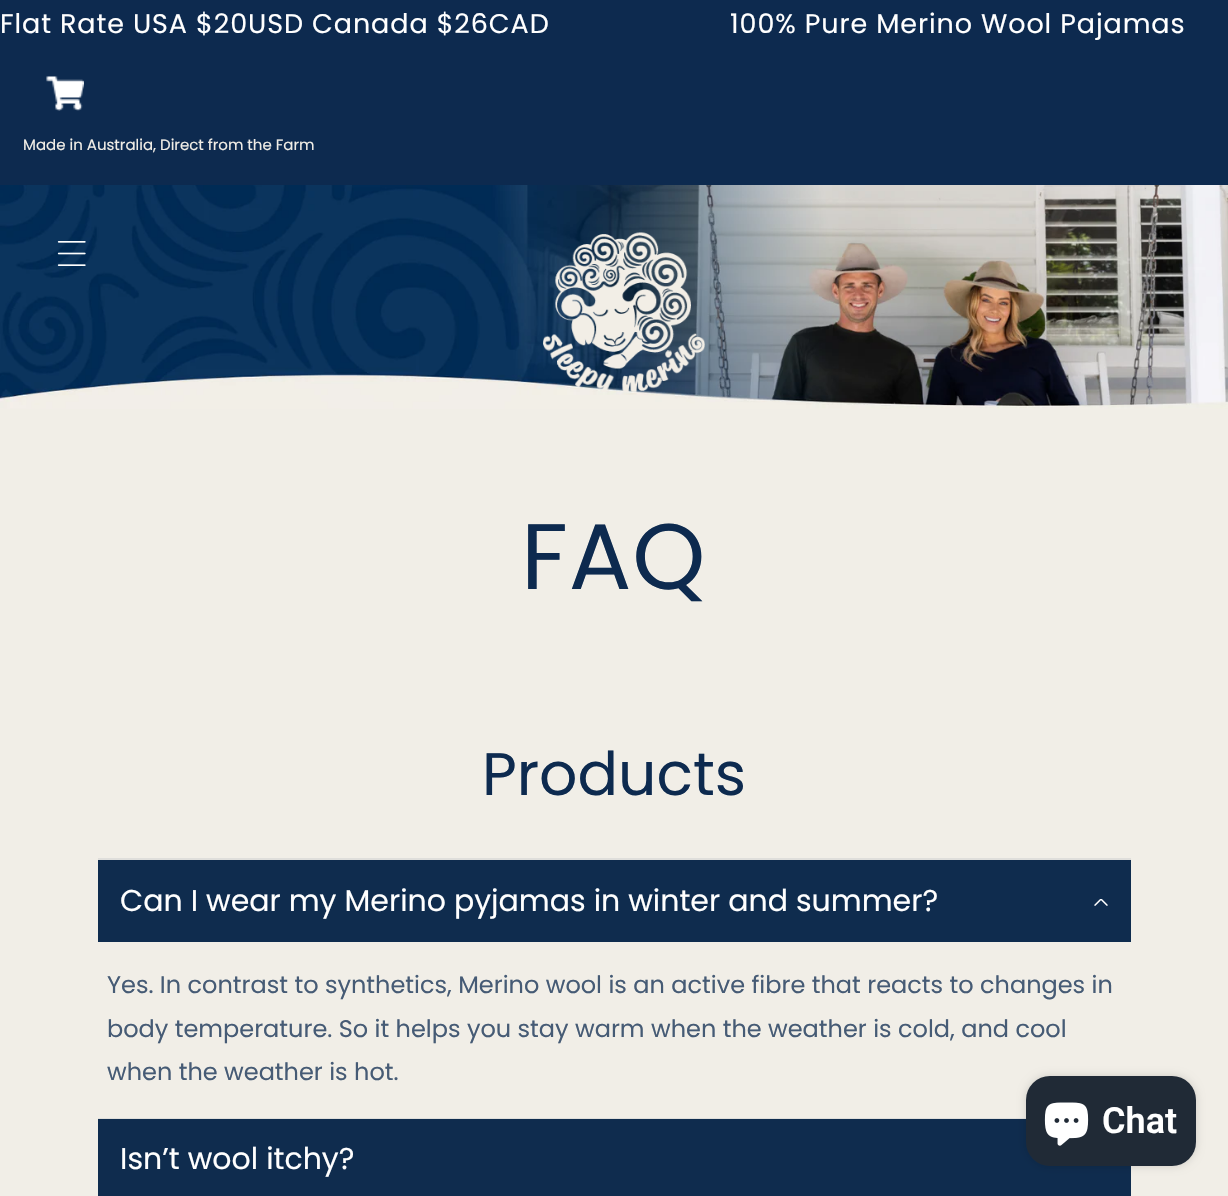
#include "include/core/SkBlurTypes.h"
#include "include/core/SkCanvas.h"
#include "include/core/SkData.h"
#include "include/core/SkFont.h"
#include "include/core/SkFontMgr.h"
#include "include/core/SkImage.h"
#include "include/core/SkMaskFilter.h"
#include "include/core/SkPaint.h"
#include "include/core/SkPathBuilder.h"
#include "include/core/SkTextBlob.h"
#include "include/effects/SkDashPathEffect.h"
#include "include/effects/SkGradientShader.h"
#include "include/utils/SkParsePath.h"

extern sk_sp<SkFontMgr> fontMgr;

static SkFont font(const char* family, int weight, float size, bool italic = false) {
    SkFontStyle style(weight, SkFontStyle::kNormal_Width,
        italic ? SkFontStyle::kItalic_Slant : SkFontStyle::kUpright_Slant);
    SkFont result(fontMgr->matchFamilyStyle(family, style), size);
    result.setSubpixel(true);
    return result;
}

static void drawLabel(SkCanvas* canvas, const char* s, float x, float y, const SkFont& font, SkColor color) {
    SkPaint ink(SkColor4f::FromColor(color));
    ink.setAntiAlias(true);
    canvas->drawString(s, x, y, font, ink);
}

static void drawTracked(SkCanvas* canvas, const char* s, float x, float y, const SkFont& font, const SkPaint& ink, float letter, float word) {
    std::vector<SkGlyphID> glyphs(font.countText(s, strlen(s), SkTextEncoding::kUTF8));
    std::vector<float> xs(glyphs.size());
    font.textToGlyphs(s, strlen(s), SkTextEncoding::kUTF8, glyphs);
    font.getXPos(glyphs, xs, x);
    float extra = 0;
    for (size_t i = 0; i < glyphs.size(); i++) {
        xs[i] += extra;
        extra += letter + word * (glyphs[i] == font.unicharToGlyph(' '));
    }
    canvas->drawTextBlob(SkTextBlob::MakeFromPosHGlyphs(glyphs, xs, y, font), 0, 0, ink);
}

static void fillRect(SkCanvas* canvas, float x, float y, float w, float h, SkColor color) {
    SkPaint ink(SkColor4f::FromColor(color));
    ink.setAntiAlias(true);
    canvas->drawRect(SkRect::MakeXYWH(x, y, w, h), ink);
}

static void fillRRect(SkCanvas* canvas, float x, float y, float w, float h, float radius, SkColor color) {
    SkPaint ink(SkColor4f::FromColor(color));
    ink.setAntiAlias(true);
    canvas->drawRoundRect(SkRect::MakeXYWH(x, y, w, h), radius, radius, ink);
}

static void drawPhoto(SkCanvas* canvas, const char* path, float x, float y, float w, float h) {
    auto image = SkImages::DeferredFromEncodedData(SkData::MakeFromFileName(path));
    canvas->drawImageRect(image, SkRect::MakeXYWH(x, y, w, h), SkSamplingOptions());
}

void draw(SkCanvas* canvas) {
    SkPaint paint;
    paint.setAntiAlias(true);
    canvas->clear(0xFFF1EEE7);
    fillRect(canvas, 0, 0, 1228, 185, 0xFF0D2A4F);
    SkFont font1 = font("Poppins", 400, 27);
    paint.setColor(0xFFFFFFFF);
    drawTracked(canvas, "Flat Rate USA $20USD Canada $26CAD", 0, 33, font1, paint, 0.9f, 0);
    drawTracked(canvas, "100% Pure Merino Wool Pajamas", 730, 33, font1, paint, 0.9f, 0);
    drawPhoto(canvas, "assets/img1.png", 46, 76, 38, 35);
    SkFont font2 = font("Poppins", 400, 15);
    drawLabel(canvas, "Made in Australia, Direct from the Farm", 23, 150, font2, 0xFFF1EEE7);
    drawPhoto(canvas, "assets/img4.png", 0, 185, 1228, 224);
    drawPhoto(canvas, "assets/img2.png", 57, 241, 29, 25);
    drawPhoto(canvas, "assets/img3.png", 543, 232, 162, 160);
    SkFont font3 = font("Poppins", 400, 93);
    paint.setColor(0xFF0D2A4F);
    drawTracked(canvas, "FAQ", 521, 589, font3, paint, 0.9f, 0);
    SkFont font4 = font("Poppins", 400, 60);
    drawLabel(canvas, "Products", 482, 795, font4, 0xFF0D2A4F);
    fillRect(canvas, 98, 858, 1033, 2, 0xFFDFDEDB);
    fillRect(canvas, 98, 1118, 928, 1, 0xFFDFDEDB);
    fillRect(canvas, 98, 860, 1033, 82, 0xFF0F2C4E);
    SkFont font5 = font("Poppins", 400, 30);
    drawLabel(canvas, "Can I wear my Merino pyjamas in winter and summer?", 120, 911, font5, 0xFFFFFFFF);
    drawPhoto(canvas, "assets/img5.png", 1094, 899, 14, 7);
    SkFont font6 = font("Poppins", 400, 24);
    drawLabel(canvas, "Yes. In contrast to synthetics, Merino wool is an active fibre that reacts to changes in", 107, 993, font6, 0xFF465B75);
    drawLabel(canvas, "body temperature. So it helps you stay warm when the weather is cold, and cool", 107, 1037, font6, 0xFF465B75);
    drawLabel(canvas, "when the weather is hot.", 107, 1080, font6, 0xFF465B75);
    fillRect(canvas, 98, 1119, 1033, 77, 0xFF0F2C4E);
    drawLabel(canvas, "Isn’t wool itchy?", 120, 1169, font5, 0xFFFFFFFF);
    paint.setColor(0x26000000);
    paint.setMaskFilter(SkMaskFilter::MakeBlur(kNormal_SkBlurStyle, 4));
    canvas->drawRoundRect(SkRect::MakeXYWH(1026, 1076, 170, 90), 24, 24, paint);
    paint.setMaskFilter(nullptr);
    fillRRect(canvas, 1026, 1076, 170, 90, 24, 0xFF202A36);
    drawPhoto(canvas, "assets/img6.png", 1044, 1102, 45, 44);
    SkFont font7 = font("Roboto", 600, 36);
    drawLabel(canvas, "Chat", 1102, 1133, font7, 0xFFFFFFFF);
}
